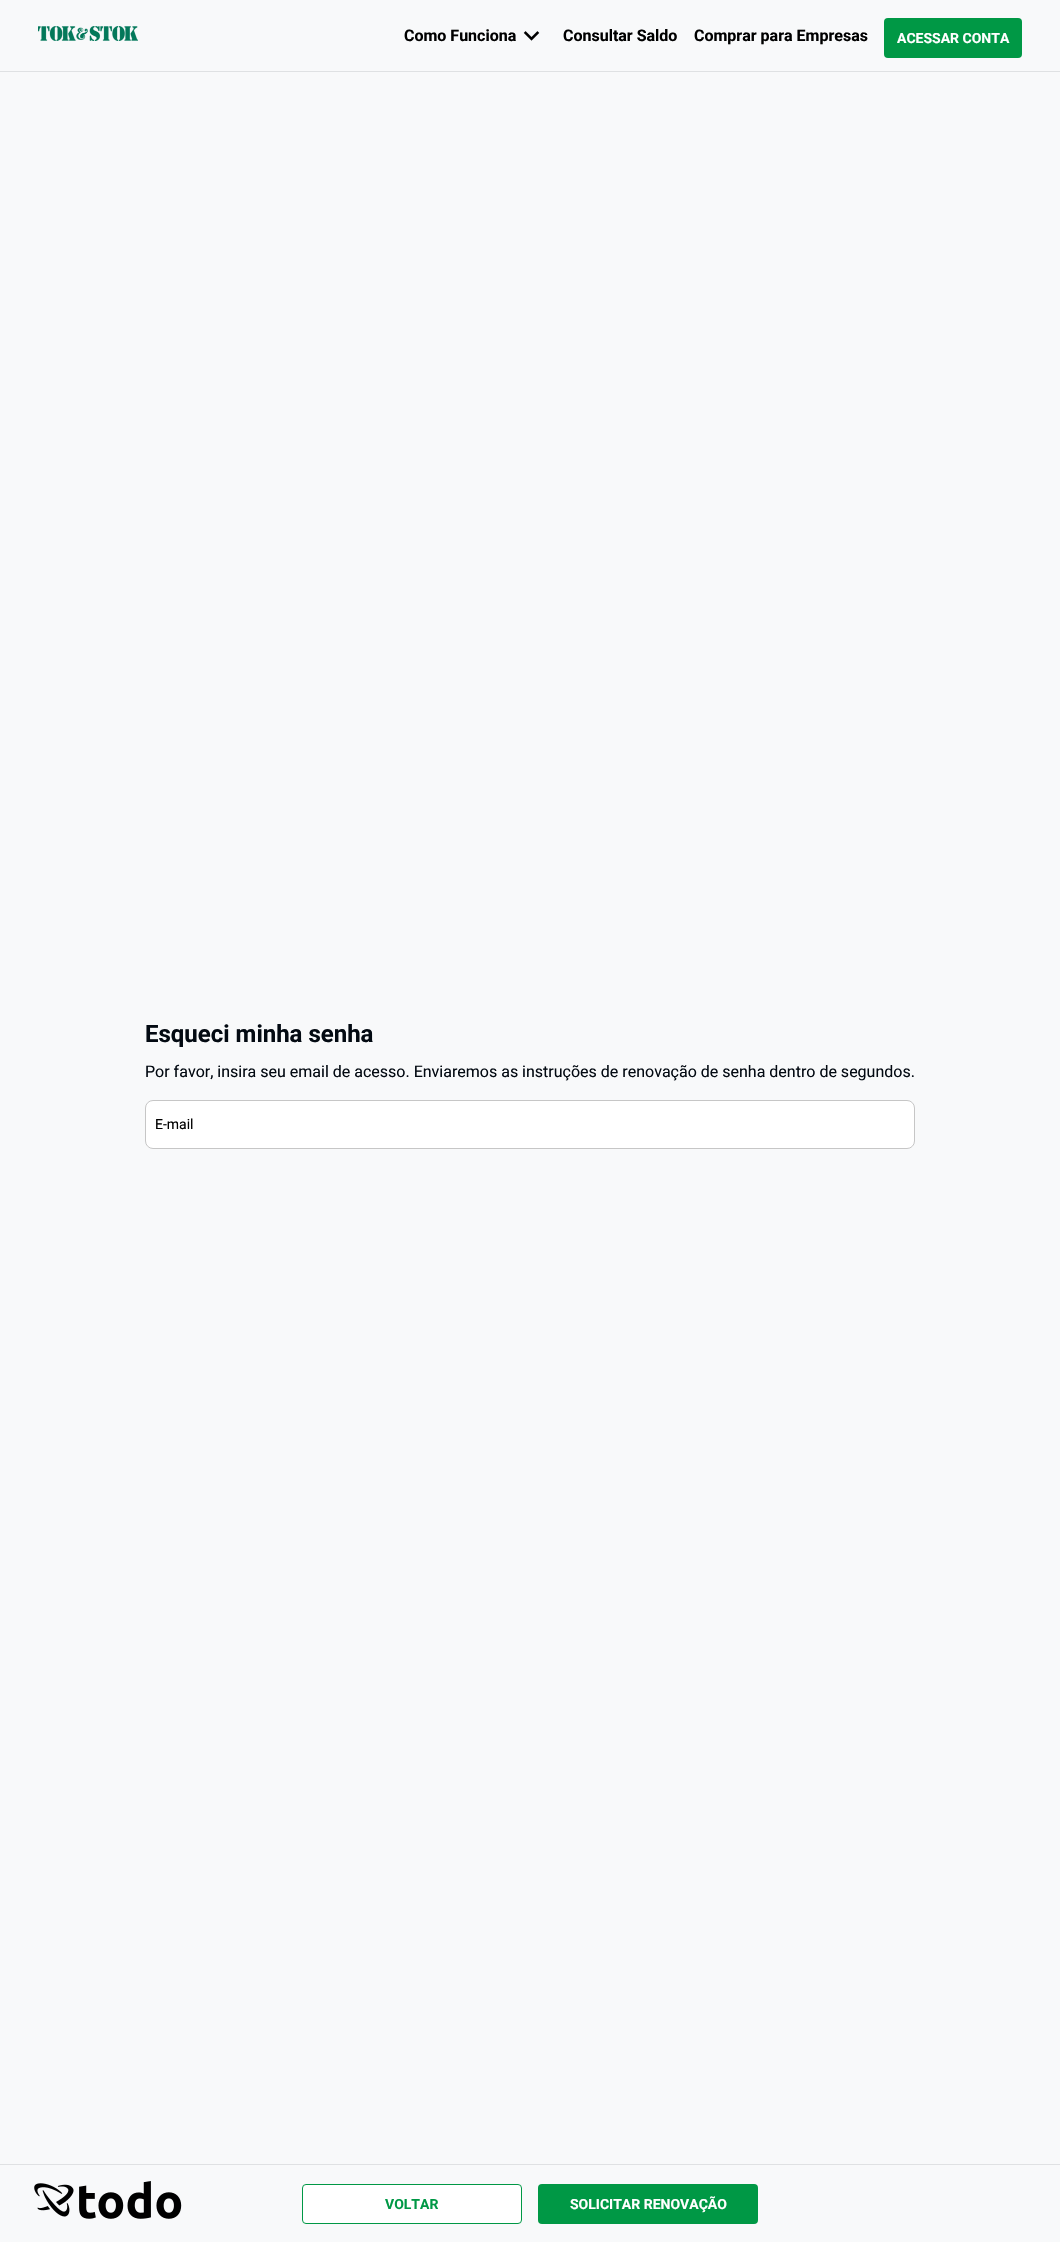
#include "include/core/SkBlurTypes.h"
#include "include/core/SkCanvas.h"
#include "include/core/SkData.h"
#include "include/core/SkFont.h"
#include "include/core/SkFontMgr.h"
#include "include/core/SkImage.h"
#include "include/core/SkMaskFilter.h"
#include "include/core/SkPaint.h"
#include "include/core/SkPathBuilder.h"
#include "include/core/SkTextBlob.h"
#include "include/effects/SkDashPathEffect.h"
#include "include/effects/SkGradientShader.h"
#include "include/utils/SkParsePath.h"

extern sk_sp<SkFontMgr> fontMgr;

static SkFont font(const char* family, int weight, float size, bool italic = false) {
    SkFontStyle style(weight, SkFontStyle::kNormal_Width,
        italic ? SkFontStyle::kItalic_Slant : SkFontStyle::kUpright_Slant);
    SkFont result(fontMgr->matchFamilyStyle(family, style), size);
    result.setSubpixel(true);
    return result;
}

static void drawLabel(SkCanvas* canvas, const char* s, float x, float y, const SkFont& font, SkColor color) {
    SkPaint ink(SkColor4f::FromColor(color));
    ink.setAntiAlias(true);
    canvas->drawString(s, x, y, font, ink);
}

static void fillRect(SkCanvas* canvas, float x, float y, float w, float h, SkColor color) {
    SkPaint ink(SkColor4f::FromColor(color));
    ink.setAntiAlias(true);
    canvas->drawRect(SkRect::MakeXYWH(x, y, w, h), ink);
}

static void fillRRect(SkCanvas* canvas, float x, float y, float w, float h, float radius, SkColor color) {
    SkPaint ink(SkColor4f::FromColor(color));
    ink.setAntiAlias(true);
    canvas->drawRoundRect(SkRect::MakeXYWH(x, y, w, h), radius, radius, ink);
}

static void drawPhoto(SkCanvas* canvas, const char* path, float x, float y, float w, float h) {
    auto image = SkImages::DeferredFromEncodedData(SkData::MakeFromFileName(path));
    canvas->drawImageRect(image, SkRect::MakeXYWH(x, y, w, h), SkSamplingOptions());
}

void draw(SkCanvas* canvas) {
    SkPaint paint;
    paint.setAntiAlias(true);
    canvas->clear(0xFFF8F9FA);
    fillRect(canvas, 0, 71, 1060, 1, 0xFFDFE1E3);
    drawPhoto(canvas, "assets/img1.png", 38, 26, 100, 15);
    SkFont font1 = font("Roboto", 700, 16);
    drawLabel(canvas, "Como Funciona", 404, 41, font1, 0xFF000000);
    drawPhoto(canvas, "assets/img2.png", 523, 31, 17, 10);
    drawLabel(canvas, "Consultar Saldo", 563, 41, font1, 0xFF000000);
    drawLabel(canvas, "Comprar para Empresas", 694, 41, font1, 0xFF000000);
    fillRRect(canvas, 884, 18, 138, 40, 4, 0xFF009845);
    SkFont font2 = font("Roboto", 700, 14);
    drawLabel(canvas, "ACESSAR CONTA", 897, 43, font2, 0xFFFFFFFF);
    SkFont font3 = font("Roboto", 700, 24);
    drawLabel(canvas, "Esqueci minha senha", 145, 1042, font3, 0xFF030A12);
    SkFont font4 = font("Roboto", 400, 16);
    drawLabel(canvas, "Por favor, insira seu email de acesso. Enviaremos as instruções de renovação de senha dentro de segundos.", 145, 1077, font4, 0xFF030A12);
    paint.setColor(0xFFFFFFFF);
    canvas->drawRoundRect(SkRect::MakeXYWH(145.5f, 1100.5f, 769, 48), 7.5f, 7.5f, paint);
    paint.setStroke(true);
    paint.setStrokeWidth(1);
    paint.setColor(0xFFC6C6C6);
    canvas->drawRoundRect(SkRect::MakeXYWH(145.5f, 1100.5f, 769, 48), 7.5f, 7.5f, paint);
    SkFont font5 = font("Roboto", 400, 14);
    drawLabel(canvas, "E-mail", 155, 1129, font5, 0xFF000000);
    fillRect(canvas, 0, 2164, 1060, 1, 0xFFDFE1E3);
    drawPhoto(canvas, "assets/img3.png", 34, 2181, 148, 38);
    paint.setStroke(false);
    paint.setColor(0xFFFFFFFF);
    canvas->drawRoundRect(SkRect::MakeXYWH(302.5f, 2184.5f, 219, 39), 3.5f, 3.5f, paint);
    paint.setStroke(true);
    paint.setColor(0xFF009845);
    canvas->drawRoundRect(SkRect::MakeXYWH(302.5f, 2184.5f, 219, 39), 3.5f, 3.5f, paint);
    drawLabel(canvas, "VOLTAR", 385, 2209, font2, 0xFF009845);
    fillRRect(canvas, 538, 2184, 220, 40, 4, 0xFF009845);
    drawLabel(canvas, "SOLICITAR RENOVAÇÃO", 570, 2209, font2, 0xFFFFFFFF);
}
